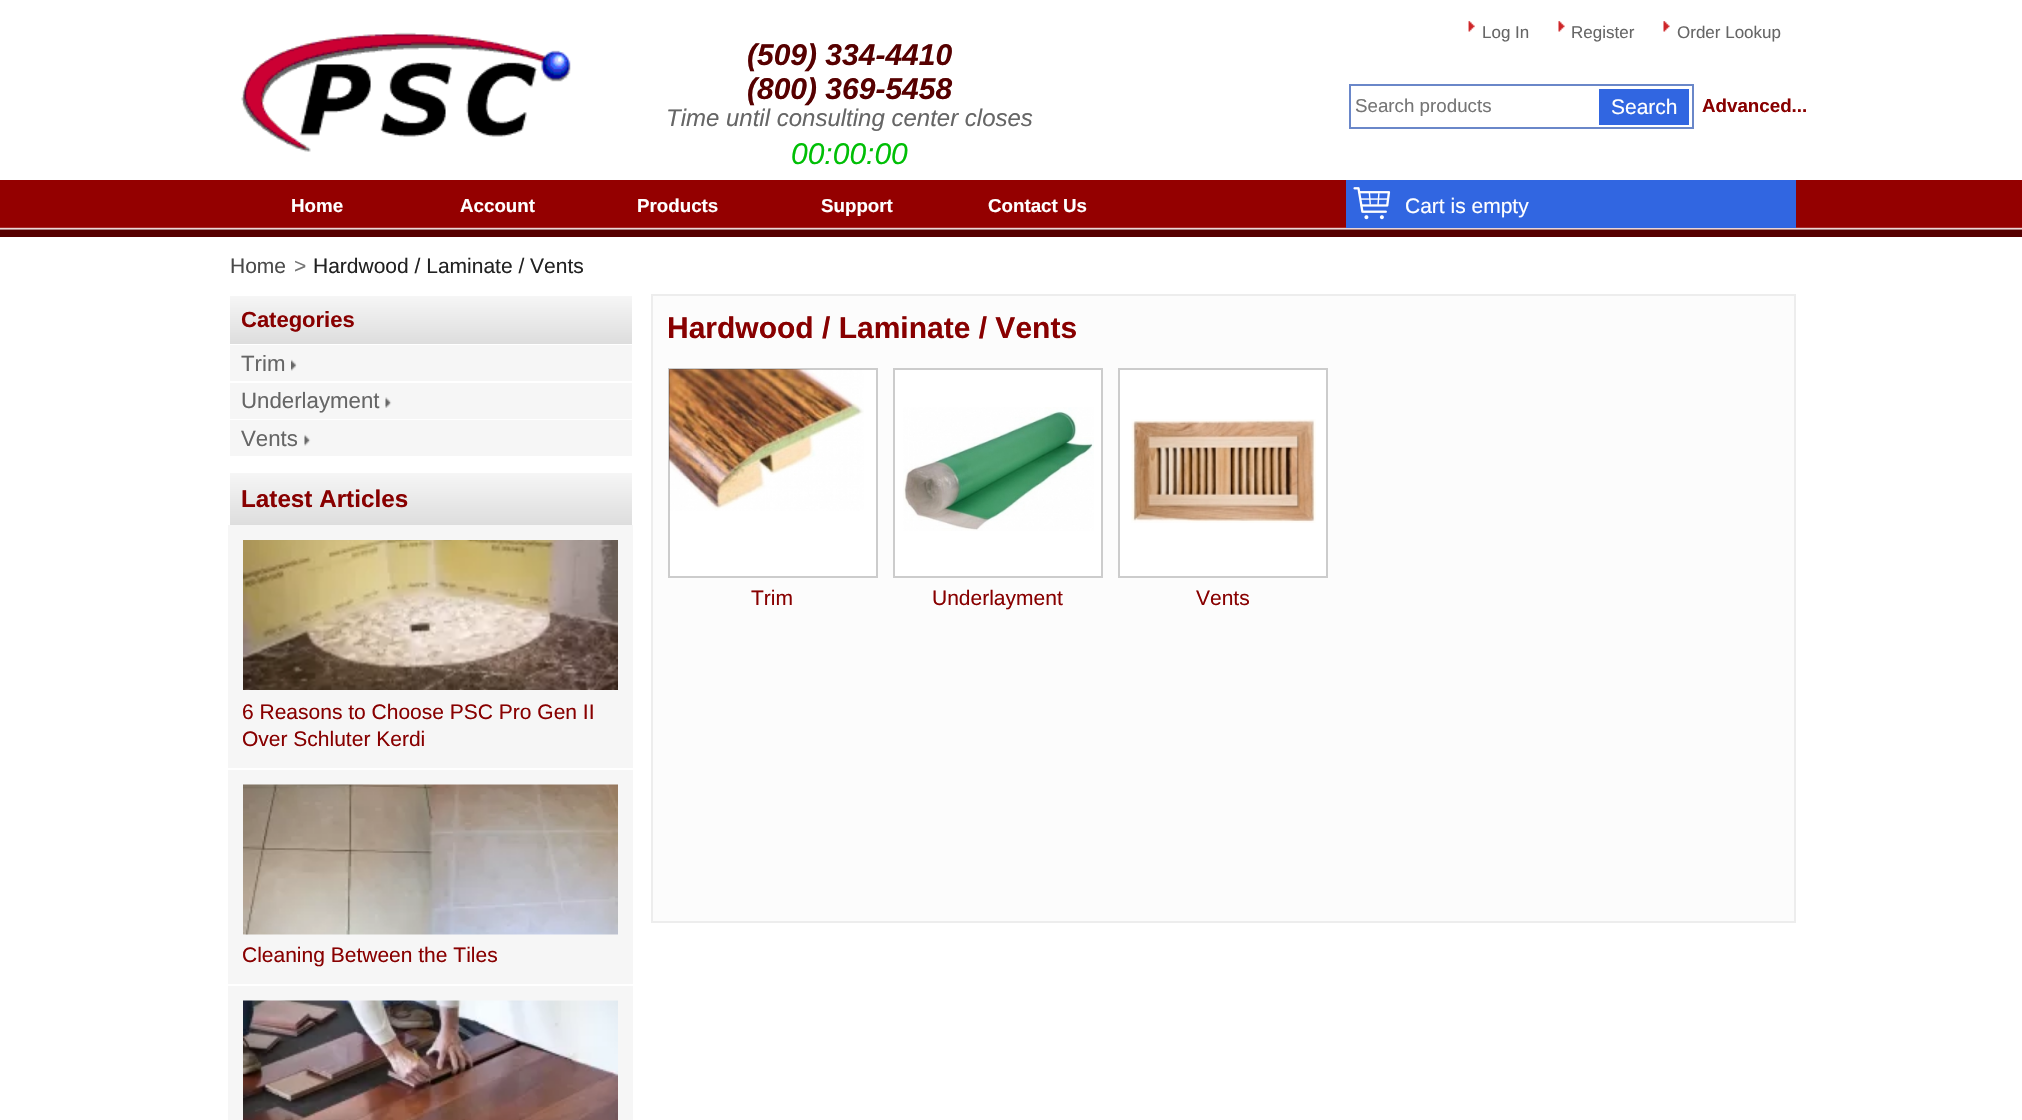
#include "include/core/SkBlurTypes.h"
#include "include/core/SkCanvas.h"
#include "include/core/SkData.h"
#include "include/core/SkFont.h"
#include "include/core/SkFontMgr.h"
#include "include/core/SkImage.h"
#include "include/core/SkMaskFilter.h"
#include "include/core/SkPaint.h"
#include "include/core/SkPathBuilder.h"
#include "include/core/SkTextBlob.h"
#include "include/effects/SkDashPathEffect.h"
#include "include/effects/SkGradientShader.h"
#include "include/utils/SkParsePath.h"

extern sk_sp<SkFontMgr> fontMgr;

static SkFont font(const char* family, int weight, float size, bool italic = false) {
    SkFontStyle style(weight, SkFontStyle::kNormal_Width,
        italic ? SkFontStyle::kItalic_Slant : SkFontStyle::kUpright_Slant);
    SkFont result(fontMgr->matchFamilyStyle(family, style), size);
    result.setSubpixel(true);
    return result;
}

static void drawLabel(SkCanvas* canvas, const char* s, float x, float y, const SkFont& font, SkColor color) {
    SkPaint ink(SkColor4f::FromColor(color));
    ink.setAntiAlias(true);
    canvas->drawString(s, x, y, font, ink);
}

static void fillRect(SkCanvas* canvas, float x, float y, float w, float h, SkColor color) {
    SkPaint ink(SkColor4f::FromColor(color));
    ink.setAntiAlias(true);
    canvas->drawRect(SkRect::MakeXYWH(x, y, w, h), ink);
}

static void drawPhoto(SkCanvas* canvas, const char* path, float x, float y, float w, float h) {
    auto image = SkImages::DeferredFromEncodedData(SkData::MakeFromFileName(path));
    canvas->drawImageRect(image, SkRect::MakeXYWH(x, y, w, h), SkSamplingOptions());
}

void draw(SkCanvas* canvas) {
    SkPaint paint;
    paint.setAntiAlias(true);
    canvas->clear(0xFFFFFFFF);
    drawPhoto(canvas, "assets/img1.png", 241, 32, 330, 120);
    SkFont font1 = font("Liberation Sans", 700, 30, true);
    drawLabel(canvas, "(509) 334-4410", 747, 65, font1, 0xFF560000);
    drawLabel(canvas, "(800) 369-5458", 747, 99, font1, 0xFF560000);
    SkFont font2 = font("Liberation Sans", 400, 24, true);
    drawLabel(canvas, "Time until consulting center closes", 666, 126, font2, 0xFF666666);
    SkFont font3 = font("Liberation Sans", 400, 30, true);
    drawLabel(canvas, "00:00:00", 791, 164, font3, 0xFF00BF06);
    drawPhoto(canvas, "assets/img2.png", 1468, 21, 7, 11);
    SkFont font4 = font("Liberation Sans", 400, 17);
    drawLabel(canvas, "Log In", 1482, 38, font4, 0xFF666666);
    drawPhoto(canvas, "assets/img3.png", 1558, 21, 7, 11);
    drawLabel(canvas, "Register", 1571, 38, font4, 0xFF666666);
    drawPhoto(canvas, "assets/img3.png", 1663, 21, 7, 11);
    drawLabel(canvas, "Order Lookup", 1677, 38, font4, 0xFF666666);
    paint.setStroke(true);
    paint.setStrokeWidth(2);
    paint.setColor(0xFF6A87C9);
    canvas->drawRect(SkRect::MakeXYWH(1350, 85, 343, 43), paint);
    SkFont font5 = font("Liberation Sans", 400, 18.75f);
    drawLabel(canvas, "Search products", 1355, 112, font5, 0xFF757575);
    fillRect(canvas, 1599, 89, 90, 36, 0xFF3166E1);
    SkFont font6 = font("Liberation Sans", 400, 21);
    drawLabel(canvas, "Search", 1611, 114, font6, 0xFFFFFFFF);
    SkFont font7 = font("Liberation Sans", 700, 18.75f);
    drawLabel(canvas, "Advanced...", 1702, 112, font7, 0xFF880000);
    drawPhoto(canvas, "assets/img4.png", 0, 180, 2022, 57);
    drawLabel(canvas, "Home", 291, 212, font7, 0xFFFFFFFF);
    drawLabel(canvas, "Account", 460, 212, font7, 0xFFFFFFFF);
    drawLabel(canvas, "Products", 637, 212, font7, 0xFFFFFFFF);
    drawLabel(canvas, "Support", 821, 212, font7, 0xFFFFFFFF);
    drawLabel(canvas, "Contact Us", 988, 212, font7, 0xFFFFFFFF);
    fillRect(canvas, 1346, 180, 450, 48, 0xFF3166E1);
    drawPhoto(canvas, "assets/img5.png", 1353, 187, 38, 33);
    drawLabel(canvas, "Cart is empty", 1405, 213, font6, 0xFFFFFFFF);
    drawLabel(canvas, "Home", 230, 273, font6, 0xFF4A4A4A);
    drawLabel(canvas, ">", 294, 273, font6, 0xFF757575);
    drawLabel(canvas, "Hardwood / Laminate / Vents", 313, 273, font6, 0xFF222222);
    paint.setStroke(false);
    {
        const SkColor colors[] = {0xFFDDDDDD, 0xFFF6F6F6};
        const float stops[] = {0, 1};
        const SkPoint ends[] = {{431, 344}, {431, 296}};
        paint.setShader(SkGradientShader::MakeLinear(ends, colors, stops, 2, SkTileMode::kClamp));
        paint.setAlpha(255);
    }
    canvas->drawRect(SkRect::MakeXYWH(230, 296, 402, 48), paint);
    SkFont font8 = font("Liberation Sans", 700, 22);
    drawLabel(canvas, "Categories", 241, 327, font8, 0xFF880000);
    fillRect(canvas, 230, 345, 402, 36, 0xFFF6F6F6);
    SkFont font9 = font("Liberation Sans", 400, 22.25f);
    drawLabel(canvas, "Trim", 241, 371, font9, 0xFF666666);
    drawPhoto(canvas, "assets/img6.png", 291, 359, 6, 12);
    fillRect(canvas, 230, 383, 402, 36, 0xFFF6F6F6);
    drawLabel(canvas, "Underlayment", 241, 408, font9, 0xFF666666);
    drawPhoto(canvas, "assets/img7.png", 385, 397, 7, 11);
    fillRect(canvas, 230, 420, 402, 36, 0xFFF6F6F6);
    drawLabel(canvas, "Vents", 241, 446, font9, 0xFF666666);
    drawPhoto(canvas, "assets/img8.png", 304, 434, 7, 12);
    fillRect(canvas, 228, 525, 405, 595, 0xFFF6F6F6);
    {
        const SkColor colors[] = {0xFFDDDDDD, 0xFFF6F6F6};
        const float stops[] = {0, 1};
        const SkPoint ends[] = {{431, 525}, {431, 473}};
        paint.setShader(SkGradientShader::MakeLinear(ends, colors, stops, 2, SkTileMode::kClamp));
        paint.setAlpha(255);
    }
    canvas->drawRect(SkRect::MakeXYWH(230, 473, 402, 52), paint);
    SkFont font10 = font("Liberation Sans", 700, 24.25f);
    drawLabel(canvas, "Latest Articles", 241, 507, font10, 0xFF880000);
    drawPhoto(canvas, "assets/img9.png", 243, 540, 375, 150);
    drawLabel(canvas, "6 Reasons to Choose PSC Pro Gen II", 242, 719, font6, 0xFF880000);
    drawLabel(canvas, "Over Schluter Kerdi", 242, 746, font6, 0xFF880000);
    fillRect(canvas, 228, 768, 405, 2, 0xFFFFFFFF);
    drawPhoto(canvas, "assets/img10.png", 243, 784, 375, 151);
    drawLabel(canvas, "Cleaning Between the Tiles", 242, 962, font6, 0xFF880000);
    fillRect(canvas, 228, 984, 405, 2, 0xFFFFFFFF);
    drawPhoto(canvas, "assets/img11.png", 243, 1000, 375, 120);
    paint.setShader(nullptr);
    paint.setColor(0xFFFCFCFC);
    canvas->drawRect(SkRect::MakeXYWH(652, 295, 1143, 627), paint);
    paint.setStroke(true);
    paint.setColor(0xFFEDEDED);
    canvas->drawRect(SkRect::MakeXYWH(652, 295, 1143, 627), paint);
    SkFont font11 = font("Liberation Sans", 700, 30);
    drawLabel(canvas, "Hardwood / Laminate / Vents", 667, 338, font11, 0xFF880000);
    fillRect(canvas, 668, 368, 210, 210, 0xFFFFFFFF);
    drawPhoto(canvas, "assets/img12.png", 669, 369, 195, 142);
    paint.setColor(0x33000000);
    canvas->drawRect(SkRect::MakeXYWH(669, 369, 208, 208), paint);
    drawLabel(canvas, "Trim", 751, 605, font6, 0xFF880000);
    fillRect(canvas, 895, 370, 206, 206, 0xFFFFFFFF);
    drawPhoto(canvas, "assets/img13.png", 903, 407, 191, 124);
    paint.setColor(0xFFCCCCCC);
    canvas->drawRect(SkRect::MakeXYWH(894, 369, 208, 208), paint);
    drawLabel(canvas, "Underlayment", 932, 605, font6, 0xFF880000);
    fillRect(canvas, 1120, 370, 206, 206, 0xFFFFFFFF);
    drawPhoto(canvas, "assets/img14.png", 1131, 419, 185, 104);
    canvas->drawRect(SkRect::MakeXYWH(1119, 369, 208, 208), paint);
    drawLabel(canvas, "Vents", 1196, 605, font6, 0xFF880000);
}
